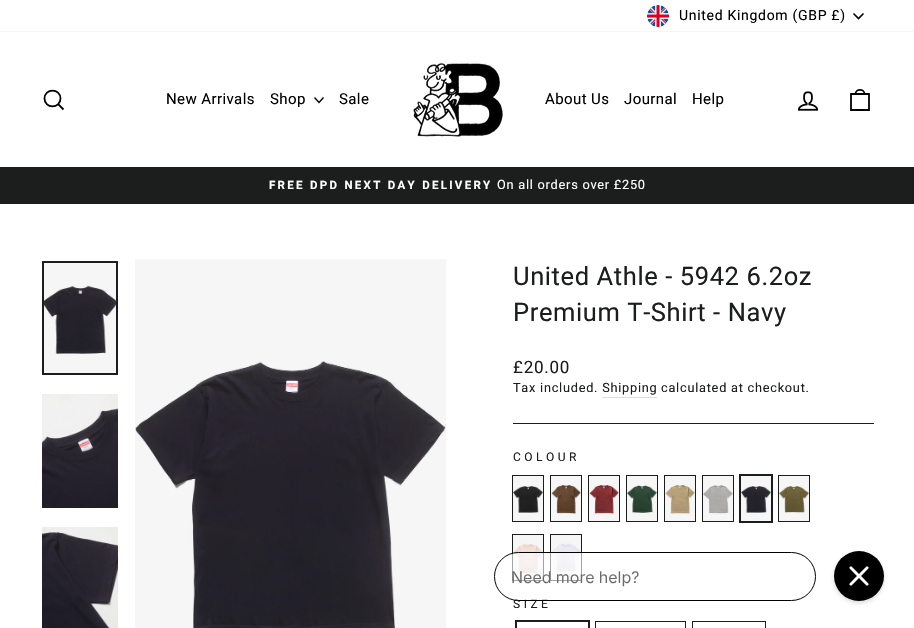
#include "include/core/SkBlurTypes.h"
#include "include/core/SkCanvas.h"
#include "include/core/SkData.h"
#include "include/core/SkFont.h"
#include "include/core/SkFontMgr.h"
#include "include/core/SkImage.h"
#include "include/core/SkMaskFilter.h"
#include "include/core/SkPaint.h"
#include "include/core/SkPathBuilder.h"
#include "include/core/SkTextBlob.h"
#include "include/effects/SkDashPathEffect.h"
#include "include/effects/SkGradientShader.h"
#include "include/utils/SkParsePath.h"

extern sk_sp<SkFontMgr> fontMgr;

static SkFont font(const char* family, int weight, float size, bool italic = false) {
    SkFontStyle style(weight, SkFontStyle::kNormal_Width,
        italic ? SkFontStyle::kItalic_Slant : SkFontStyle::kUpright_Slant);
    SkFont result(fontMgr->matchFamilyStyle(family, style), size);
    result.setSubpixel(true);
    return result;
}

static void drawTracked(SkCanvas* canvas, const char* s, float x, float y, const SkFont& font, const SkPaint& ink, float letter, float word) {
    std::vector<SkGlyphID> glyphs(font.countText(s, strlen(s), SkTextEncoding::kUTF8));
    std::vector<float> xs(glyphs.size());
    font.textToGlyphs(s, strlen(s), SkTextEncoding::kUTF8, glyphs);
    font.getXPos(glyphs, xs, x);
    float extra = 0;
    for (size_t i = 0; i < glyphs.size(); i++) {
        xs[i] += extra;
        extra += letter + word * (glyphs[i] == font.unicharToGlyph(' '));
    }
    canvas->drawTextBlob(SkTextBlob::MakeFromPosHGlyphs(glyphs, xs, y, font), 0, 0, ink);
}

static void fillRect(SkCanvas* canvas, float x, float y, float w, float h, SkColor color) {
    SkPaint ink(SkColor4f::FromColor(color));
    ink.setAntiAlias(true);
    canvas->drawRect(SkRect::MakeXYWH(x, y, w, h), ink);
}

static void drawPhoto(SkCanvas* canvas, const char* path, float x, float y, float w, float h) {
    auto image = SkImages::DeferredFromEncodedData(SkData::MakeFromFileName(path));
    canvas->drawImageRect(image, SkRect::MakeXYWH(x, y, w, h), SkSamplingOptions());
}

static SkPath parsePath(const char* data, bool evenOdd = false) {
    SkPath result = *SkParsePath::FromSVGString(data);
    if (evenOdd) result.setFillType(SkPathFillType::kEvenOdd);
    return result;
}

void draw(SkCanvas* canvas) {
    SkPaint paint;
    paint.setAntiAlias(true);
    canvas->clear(0xFFFFFFFF);
    drawPhoto(canvas, "assets/img1.png", 647, 5, 22, 22);
    SkFont font1 = font("Roboto", 400, 14);
    paint.setColor(0xFF000000);
    drawTracked(canvas, "United Kingdom (GBP £)", 679, 20, font1, paint, 0.7f, 0);
    paint.setStroke(true);
    paint.setStrokeWidth(1.6f);
    canvas->drawPath(parsePath("M853.5 13.5L858.5 18.5L863.5 13.5"), paint);
    fillRect(canvas, 0, 167, 914, 37, 0xFF1C1D1D);
    paint.setStroke(false);
    paint.setColor(0x33000000);
    paint.setMaskFilter(SkMaskFilter::MakeBlur(kNormal_SkBlurStyle, 0.5f));
    canvas->drawRect(SkRect::MakeXYWH(0, 32, 914, 135), paint);
    paint.setMaskFilter(nullptr);
    fillRect(canvas, 0, 32, 914, 135, 0xFFFFFFFF);
    paint.setStroke(true);
    paint.setStrokeWidth(1.8f);
    paint.setColor(0xFF000000);
    canvas->drawPath(parsePath("M60.5 98.5C60.5 109 44.5 109 44.5 98.5C44.5 88 60.5 88 60.5 98.5ZM63.5 109.5L58.5 104.5"), paint);
    SkFont font2 = font("Roboto", 400, 15);
    paint.setStroke(false);
    drawTracked(canvas, "New Arrivals", 166, 104, font2, paint, 0.4f, 0);
    drawTracked(canvas, "Shop", 270, 104, font2, paint, 0.4f, 0);
    paint.setStroke(true);
    paint.setStrokeWidth(1.4f);
    canvas->drawPath(parsePath("M314.5 97.5L319 102.5L323.5 97.5"), paint);
    paint.setStroke(false);
    drawTracked(canvas, "Sale", 339, 104, font2, paint, 0.4f, 0);
    drawPhoto(canvas, "assets/img2.png", 413, 62, 90, 75);
    drawTracked(canvas, "About Us", 545, 104, font2, paint, 0.4f, 0);
    drawTracked(canvas, "Journal", 624, 104, font2, paint, 0.4f, 0);
    drawTracked(canvas, "Help", 692, 104, font2, paint, 0.4f, 0);
    drawPhoto(canvas, "assets/img3.png", 797, 91, 22, 20);
    paint.setStroke(true);
    paint.setStrokeWidth(1.8f);
    canvas->drawPath(parsePath("M851 94H869V110H851ZM855.5 94C855.5 88.5 864.5 88.5 864.5 94"), paint);
    SkFont font3 = font("Roboto", 700, 11.5f);
    paint.setStroke(false);
    paint.setColor(0xFFFFFFFF);
    drawTracked(canvas, "FREE DPD NEXT DAY DELIVERY", 269, 189, font3, paint, 2.3f, 0);
    SkFont font4 = font("Roboto", 400, 12.75f);
    drawTracked(canvas, "On all orders over £250", 497, 189, font4, paint, 0.75f, 0);
    drawPhoto(canvas, "assets/img4.png", 44, 263, 72, 110);
    paint.setStroke(true);
    paint.setStrokeWidth(2);
    paint.setColor(0xFF1C1D1D);
    canvas->drawRect(SkRect::MakeXYWH(43, 262, 74, 112), paint);
    drawPhoto(canvas, "assets/img5.png", 42, 394, 76, 114);
    drawPhoto(canvas, "assets/img6.png", 42, 527, 76, 101);
    drawPhoto(canvas, "assets/img7.png", 135, 259, 311, 369);
    SkFont font5 = font("Roboto", 400, 25.5f);
    paint.setStroke(false);
    drawTracked(canvas, "United Athle - 5942 6.2oz", 513, 285, font5, paint, 0.6f, 0);
    drawTracked(canvas, "Premium T-Shirt - Navy", 513, 321, font5, paint, 0.6f, 0);
    SkFont font6 = font("Roboto", 400, 17);
    drawTracked(canvas, "£20.00", 513, 373, font6, paint, 0.75f, 0);
    drawTracked(canvas, "Tax included. Shipping", 513, 392, font4, paint, 0.75f, 0);
    drawTracked(canvas, "calculated at checkout.", 661, 392, font4, paint, 0.75f, 0);
    fillRect(canvas, 602, 397, 55, 1, 0xFFDDDDDD);
    fillRect(canvas, 513, 423, 361, 1, 0xFF1C1D1D);
    SkFont font7 = font("Roboto", 400, 12);
    drawTracked(canvas, "COLOUR", 513, 461, font7, paint, 3.5f, 0);
    paint.setStroke(true);
    paint.setStrokeWidth(1);
    canvas->drawRect(SkRect::MakeXYWH(512.5f, 475.5f, 31, 46), paint);
    drawPhoto(canvas, "assets/img8.png", 513, 476, 30, 45);
    canvas->drawRect(SkRect::MakeXYWH(550.5f, 475.5f, 31, 46), paint);
    drawPhoto(canvas, "assets/img9.png", 551, 476, 30, 45);
    canvas->drawRect(SkRect::MakeXYWH(588.5f, 475.5f, 31, 46), paint);
    drawPhoto(canvas, "assets/img10.png", 589, 476, 30, 45);
    canvas->drawRect(SkRect::MakeXYWH(626.5f, 475.5f, 31, 46), paint);
    drawPhoto(canvas, "assets/img11.png", 627, 476, 30, 45);
    canvas->drawRect(SkRect::MakeXYWH(664.5f, 475.5f, 31, 46), paint);
    drawPhoto(canvas, "assets/img12.png", 665, 476, 30, 45);
    canvas->drawRect(SkRect::MakeXYWH(702.5f, 475.5f, 31, 46), paint);
    drawPhoto(canvas, "assets/img13.png", 703, 476, 30, 45);
    paint.setStrokeWidth(2);
    canvas->drawRect(SkRect::MakeXYWH(740, 475, 32, 47), paint);
    drawPhoto(canvas, "assets/img14.png", 741, 476, 30, 45);
    paint.setStrokeWidth(1);
    canvas->drawRect(SkRect::MakeXYWH(778.5f, 475.5f, 31, 46), paint);
    drawPhoto(canvas, "assets/img15.png", 779, 476, 30, 45);
    canvas->drawRect(SkRect::MakeXYWH(512.5f, 534.5f, 31, 46), paint);
    drawPhoto(canvas, "assets/img16.png", 513, 535, 30, 45);
    canvas->drawRect(SkRect::MakeXYWH(550.5f, 534.5f, 31, 46), paint);
    drawPhoto(canvas, "assets/img17.png", 551, 535, 30, 45);
    paint.setStroke(false);
    drawTracked(canvas, "SIZE", 513, 608, font7, paint, 3.5f, 0);
    paint.setStroke(true);
    paint.setStrokeWidth(2);
    canvas->drawRect(SkRect::MakeXYWH(516, 621, 73, 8), paint);
    paint.setStrokeWidth(1);
    canvas->drawRect(SkRect::MakeXYWH(595.5f, 621.5f, 90, 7), paint);
    canvas->drawRect(SkRect::MakeXYWH(692.5f, 621.5f, 73, 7), paint);
    drawPhoto(canvas, "assets/img18.png", 494, 551, 392, 54);
}
